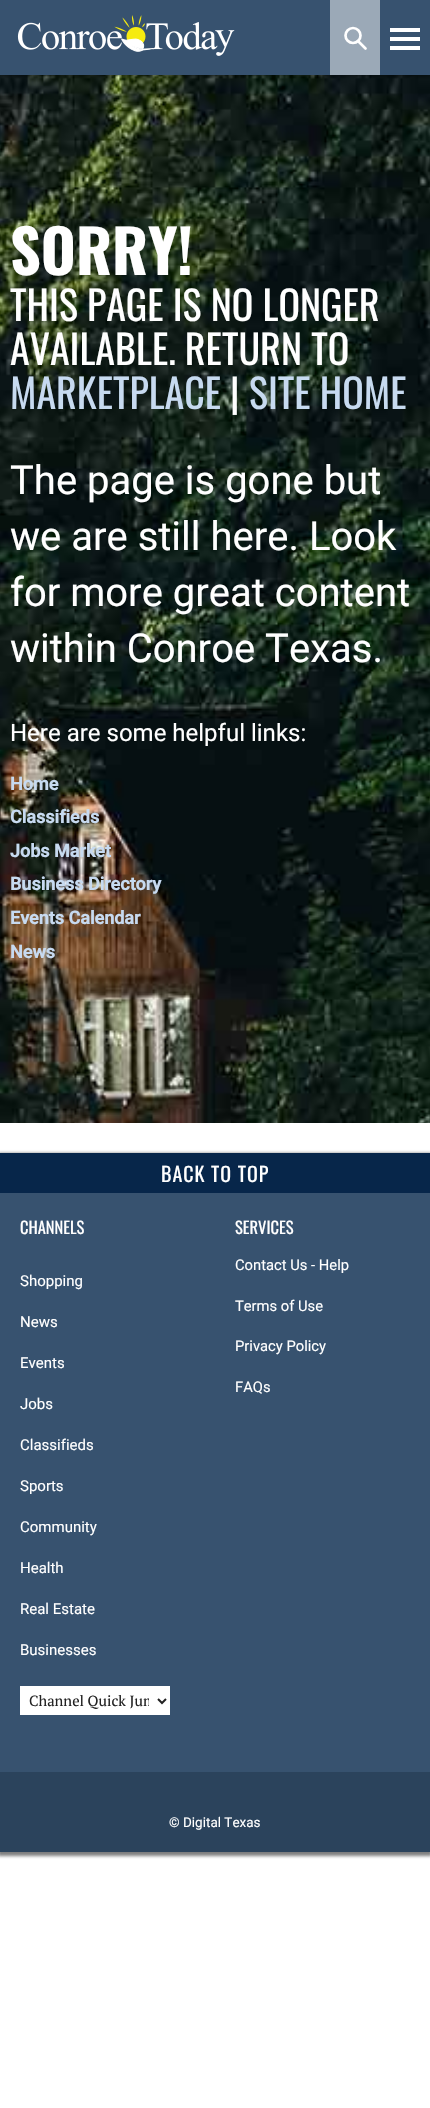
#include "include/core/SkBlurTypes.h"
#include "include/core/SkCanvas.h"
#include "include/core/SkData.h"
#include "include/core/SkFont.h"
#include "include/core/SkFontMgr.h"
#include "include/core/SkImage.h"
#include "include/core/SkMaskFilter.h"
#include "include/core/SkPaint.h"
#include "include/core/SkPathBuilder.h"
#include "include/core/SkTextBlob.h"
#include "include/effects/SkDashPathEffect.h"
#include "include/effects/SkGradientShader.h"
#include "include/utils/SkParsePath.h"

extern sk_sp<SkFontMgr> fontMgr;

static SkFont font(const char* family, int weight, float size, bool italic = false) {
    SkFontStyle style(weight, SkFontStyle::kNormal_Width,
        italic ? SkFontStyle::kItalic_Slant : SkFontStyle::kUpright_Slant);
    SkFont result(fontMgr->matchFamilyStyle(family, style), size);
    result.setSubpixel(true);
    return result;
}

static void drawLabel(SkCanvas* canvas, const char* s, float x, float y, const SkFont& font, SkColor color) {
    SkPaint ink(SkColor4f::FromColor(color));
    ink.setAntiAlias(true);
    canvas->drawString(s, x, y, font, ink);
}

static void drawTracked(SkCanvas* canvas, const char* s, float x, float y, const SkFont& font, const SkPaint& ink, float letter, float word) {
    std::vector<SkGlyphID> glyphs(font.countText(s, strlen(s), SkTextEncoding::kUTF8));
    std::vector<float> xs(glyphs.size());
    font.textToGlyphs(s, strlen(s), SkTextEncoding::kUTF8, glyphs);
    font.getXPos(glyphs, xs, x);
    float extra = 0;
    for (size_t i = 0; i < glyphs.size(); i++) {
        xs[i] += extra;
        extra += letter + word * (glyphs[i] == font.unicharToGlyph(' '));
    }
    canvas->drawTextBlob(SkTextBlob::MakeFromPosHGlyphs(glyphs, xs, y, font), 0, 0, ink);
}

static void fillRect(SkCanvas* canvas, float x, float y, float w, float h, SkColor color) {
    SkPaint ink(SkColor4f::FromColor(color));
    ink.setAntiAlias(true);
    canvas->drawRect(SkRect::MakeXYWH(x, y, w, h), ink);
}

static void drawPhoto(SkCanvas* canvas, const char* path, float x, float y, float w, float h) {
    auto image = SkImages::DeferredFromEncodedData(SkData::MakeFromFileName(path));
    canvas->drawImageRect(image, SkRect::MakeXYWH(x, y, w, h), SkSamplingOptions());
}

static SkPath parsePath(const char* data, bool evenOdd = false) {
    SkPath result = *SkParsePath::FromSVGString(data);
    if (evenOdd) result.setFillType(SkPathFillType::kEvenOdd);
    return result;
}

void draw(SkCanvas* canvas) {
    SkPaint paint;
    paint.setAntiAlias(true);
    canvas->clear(0xFFFFFFFF);
    drawPhoto(canvas, "assets/img2.png", 0, 75, 430, 1048);
    paint.setColor(0x80000000);
    paint.setMaskFilter(SkMaskFilter::MakeBlur(kNormal_SkBlurStyle, 1.5f));
    canvas->drawRect(SkRect::MakeXYWH(2, 4, 426, 71), paint);
    paint.setMaskFilter(nullptr);
    fillRect(canvas, 0, 0, 430, 75, 0xFF37526F);
    drawPhoto(canvas, "assets/img1.png", 17, 15, 218, 41);
    fillRect(canvas, 330, 0, 50, 75, 0xFF9BA9B7);
    paint.setStroke(true);
    paint.setStrokeWidth(2.7f);
    paint.setStrokeCap(SkPaint::kRound_Cap);
    paint.setColor(0xFFFFFFFF);
    canvas->drawPath(parsePath("M365.5 48.5L358 41"), paint);
    paint.setStrokeCap(SkPaint::kButt_Cap);
    canvas->drawCircle(353, 35.5f, 7.5f, paint);
    fillRect(canvas, 390, 28, 30, 4, 0xFFFFFFFF);
    fillRect(canvas, 390, 37, 30, 4, 0xFFFFFFFF);
    fillRect(canvas, 390, 46, 30, 4, 0xFFFFFFFF);
    SkFont font1 = font("Oswald", 700, 60);
    drawLabel(canvas, "SORRY!", 10, 275, font1, 0xFFFFFFFF);
    SkFont font2 = font("Oswald", 400, 40);
    drawLabel(canvas, "THIS PAGE IS NO LONGER", 10, 321, font2, 0xFFFFFFFF);
    drawLabel(canvas, "AVAILABLE. RETURN TO", 10, 365, font2, 0xFFFFFFFF);
    drawLabel(canvas, "MARKETPLACE", 10, 409, font2, 0xFFC7DAF0);
    drawLabel(canvas, "|", 230, 409, font2, 0xFFFFFFFF);
    drawLabel(canvas, "SITE HOME", 249, 409, font2, 0xFFC7DAF0);
    SkFont font3 = font("Roboto", 400, 40);
    drawLabel(canvas, "The page is gone but", 10, 494, font3, 0xFFFFFFFF);
    drawLabel(canvas, "we are still here. Look", 10, 550, font3, 0xFFFFFFFF);
    drawLabel(canvas, "for more great content", 10, 606, font3, 0xFFFFFFFF);
    drawLabel(canvas, "within Conroe Texas.", 10, 662, font3, 0xFFFFFFFF);
    SkFont font4 = font("Roboto", 400, 24);
    drawLabel(canvas, "Here are some helpful links:", 10, 741, font4, 0xFFFFFFFF);
    SkFont font5 = font("Roboto", 700, 18);
    drawLabel(canvas, "Home", 10, 790, font5, 0xFFC7DAF0);
    drawLabel(canvas, "Classifieds", 10, 823, font5, 0xFFC7DAF0);
    drawLabel(canvas, "Jobs Market", 10, 857, font5, 0xFFC7DAF0);
    drawLabel(canvas, "Business Directory", 10, 890, font5, 0xFFC7DAF0);
    drawLabel(canvas, "Events Calendar", 10, 924, font5, 0xFFC7DAF0);
    drawLabel(canvas, "News", 10, 958, font5, 0xFFC7DAF0);
    paint.setStroke(false);
    paint.setColor(0x80000000);
    paint.setMaskFilter(SkMaskFilter::MakeBlur(kNormal_SkBlurStyle, 1.5f));
    canvas->drawRect(SkRect::MakeXYWH(-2, 1153, 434, 703), paint);
    paint.setMaskFilter(nullptr);
    fillRect(canvas, 0, 1193, 430, 579, 0xFF37526F);
    fillRect(canvas, 0, 1153, 430, 40, 0xFF07264A);
    SkFont font6 = font("Oswald", 400, 20);
    paint.setColor(0xFFFFFFFF);
    drawTracked(canvas, "BACK TO TOP", 161, 1182, font6, paint, 1, 0);
    SkFont font7 = font("Oswald", 400, 16.5f);
    drawLabel(canvas, "CHANNELS", 20, 1234, font7, 0xFFFFFFFF);
    SkFont font8 = font("Roboto", 400, 15);
    drawLabel(canvas, "Shopping", 20, 1286, font8, 0xFFFFFFFF);
    drawLabel(canvas, "News", 20, 1327, font8, 0xFFFFFFFF);
    drawLabel(canvas, "Events", 20, 1368, font8, 0xFFFFFFFF);
    drawLabel(canvas, "Jobs", 20, 1409, font8, 0xFFFFFFFF);
    drawLabel(canvas, "Classifieds", 20, 1450, font8, 0xFFFFFFFF);
    drawLabel(canvas, "Sports", 20, 1491, font8, 0xFFFFFFFF);
    drawLabel(canvas, "Community", 20, 1532, font8, 0xFFFFFFFF);
    drawLabel(canvas, "Health", 20, 1573, font8, 0xFFFFFFFF);
    drawLabel(canvas, "Real Estate", 20, 1614, font8, 0xFFFFFFFF);
    drawLabel(canvas, "Businesses", 20, 1655, font8, 0xFFFFFFFF);
    fillRect(canvas, 20, 1686, 150, 29, 0xFFFFFFFF);
    paint.setStroke(true);
    paint.setStrokeWidth(2);
    paint.setColor(0xFF222222);
    canvas->drawPath(parsePath("M158 1699L162 1703L166 1699"), paint);
    canvas->save();
    canvas->clipRect(SkRect::MakeXYWH(29, 1690, 120, 21));
    SkFont font9 = font("PT Serif", 400, 14.75f);
    drawLabel(canvas, "Channel Quick Jum", 29, 1706, font9, 0xFF222222);
    canvas->restore();
    drawLabel(canvas, "SERVICES", 235, 1234, font7, 0xFFFFFFFF);
    SkFont font10 = font("Roboto", 400, 14.75f);
    drawLabel(canvas, "Contact Us - Help", 235, 1270, font10, 0xFFFFFFFF);
    drawLabel(canvas, "Terms of Use", 235, 1311, font10, 0xFFFFFFFF);
    drawLabel(canvas, "Privacy Policy", 235, 1351, font10, 0xFFFFFFFF);
    drawLabel(canvas, "FAQs", 235, 1392, font10, 0xFFFFFFFF);
    fillRect(canvas, 0, 1772, 430, 80, 0xFF2B435C);
    SkFont font11 = font("Roboto", 400, 13.5f);
    drawLabel(canvas, "© Digital Texas", 169, 1827, font11, 0xFFFFFFFF);
}
